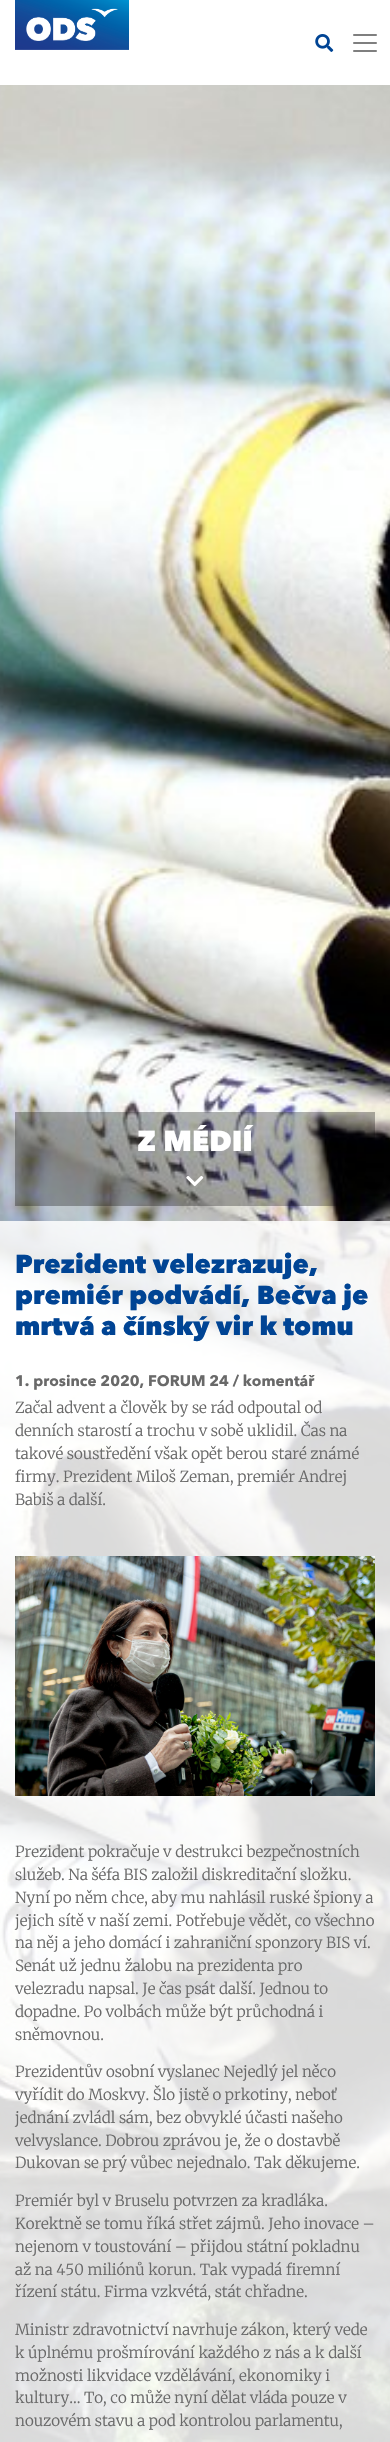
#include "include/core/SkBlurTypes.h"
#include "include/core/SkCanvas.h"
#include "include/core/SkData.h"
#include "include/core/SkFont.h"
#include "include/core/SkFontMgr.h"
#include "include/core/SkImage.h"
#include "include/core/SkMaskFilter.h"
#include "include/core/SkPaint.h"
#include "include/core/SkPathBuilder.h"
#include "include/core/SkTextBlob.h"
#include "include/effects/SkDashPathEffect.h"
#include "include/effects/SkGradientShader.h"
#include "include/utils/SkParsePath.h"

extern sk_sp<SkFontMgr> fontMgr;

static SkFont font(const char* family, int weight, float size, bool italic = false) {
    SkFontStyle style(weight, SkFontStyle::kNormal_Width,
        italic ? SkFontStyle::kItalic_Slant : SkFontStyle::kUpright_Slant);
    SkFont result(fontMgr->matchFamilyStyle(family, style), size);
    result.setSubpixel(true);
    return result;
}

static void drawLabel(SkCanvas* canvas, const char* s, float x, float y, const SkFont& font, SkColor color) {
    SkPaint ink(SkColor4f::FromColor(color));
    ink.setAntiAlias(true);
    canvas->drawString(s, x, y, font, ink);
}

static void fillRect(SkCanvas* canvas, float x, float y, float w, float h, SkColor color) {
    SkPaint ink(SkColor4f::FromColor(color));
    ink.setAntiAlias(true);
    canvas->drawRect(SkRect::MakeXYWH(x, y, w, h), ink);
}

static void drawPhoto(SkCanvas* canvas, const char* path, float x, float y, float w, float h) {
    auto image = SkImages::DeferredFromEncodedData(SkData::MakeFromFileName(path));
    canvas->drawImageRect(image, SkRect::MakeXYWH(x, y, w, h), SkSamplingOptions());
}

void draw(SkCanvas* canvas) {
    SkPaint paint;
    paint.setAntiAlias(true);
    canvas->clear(0xFFFFFFFF);
    drawPhoto(canvas, "assets/img1.png", 15, 0, 114, 50);
    drawPhoto(canvas, "assets/img2.png", 315, 34, 19, 18);
    drawPhoto(canvas, "assets/img3.png", 353, 34, 24, 18);
    drawPhoto(canvas, "assets/img4.png", 0, 85, 390, 2357);
    fillRect(canvas, 15, 1112, 360, 94, 0x4D000000);
    SkFont font1 = font("Avenir Next", 900, 28.5f);
    drawLabel(canvas, "Z MÉDIÍ", 137, 1151, font1, 0xFFFFFFFF);
    drawPhoto(canvas, "assets/img5.png", 186, 1175, 18, 12);
    fillRect(canvas, 0, 1221, 390, 1221, 0xD9FFFFFF);
    SkFont font2 = font("Avenir Next", 900, 25.9f);
    drawLabel(canvas, "Prezident velezrazuje,", 15, 1273, font2, 0xFF004494);
    drawLabel(canvas, "premiér podvádí, Bečva je", 15, 1304, font2, 0xFF004494);
    drawLabel(canvas, "mrtvá a čínský vir k tomu", 15, 1335, font2, 0xFF004494);
    SkFont font3 = font("Avenir Next", 700, 15.2f);
    drawLabel(canvas, "1. prosince 2020, FORUM 24 / komentář", 15, 1386, font3, 0xFF696969);
    SkFont font4 = font("Merriweather", 300, 15.2f);
    drawLabel(canvas, "Začal advent a člověk by se rád odpoutal od", 15, 1413, font4, 0xFF696969);
    drawLabel(canvas, "denních starostí a trochu v sobě uklidil. Čas na", 15, 1436, font4, 0xFF696969);
    drawLabel(canvas, "takové soustředění však opět berou staré známé", 15, 1459, font4, 0xFF696969);
    drawLabel(canvas, "firmy. Prezident Miloš Zeman, premiér Andrej", 15, 1482, font4, 0xFF696969);
    drawLabel(canvas, "Babiš a další.", 15, 1505, font4, 0xFF696969);
    drawPhoto(canvas, "assets/img6.png", 15, 1556, 360, 240);
    drawLabel(canvas, "Prezident pokračuje v destrukci bezpečnostních", 15, 1857, font4, 0xFF696969);
    drawLabel(canvas, "služeb. Na šéfa BIS založil diskreditační složku.", 15, 1880, font4, 0xFF696969);
    drawLabel(canvas, "Nyní po něm chce, aby mu nahlásil ruské špiony a", 15, 1903, font4, 0xFF696969);
    drawLabel(canvas, "jejich sítě v naší zemi. Potřebuje vědět, co všechno", 15, 1926, font4, 0xFF696969);
    drawLabel(canvas, "na něj a jeho domácí i zahraniční sponzory BIS ví.", 15, 1948, font4, 0xFF696969);
    drawLabel(canvas, "Senát už jednu žalobu na prezidenta pro", 15, 1971, font4, 0xFF696969);
    drawLabel(canvas, "velezradu napsal. Je čas psát další. Jednou to", 15, 1994, font4, 0xFF696969);
    drawLabel(canvas, "dopadne. Po volbách může být průchodná i", 15, 2017, font4, 0xFF696969);
    drawLabel(canvas, "sněmovnou.", 15, 2040, font4, 0xFF696969);
    drawLabel(canvas, "Prezidentův osobní vyslanec Nejedlý jel něco", 15, 2077, font4, 0xFF696969);
    drawLabel(canvas, "vyřídit do Moskvy. Šlo jistě o prkotiny, neboť", 15, 2100, font4, 0xFF696969);
    drawLabel(canvas, "jednání zvládl sám, bez obvyklé účasti našeho", 15, 2123, font4, 0xFF696969);
    drawLabel(canvas, "velvyslance. Dobrou zprávou je, že o dostavbě", 15, 2146, font4, 0xFF696969);
    drawLabel(canvas, "Dukovan se prý vůbec nejednalo. Tak děkujeme.", 15, 2168, font4, 0xFF696969);
    drawLabel(canvas, "Premiér byl v Bruselu potvrzen za kradláka.", 15, 2206, font4, 0xFF696969);
    drawLabel(canvas, "Korektně se tomu říká střet zájmů. Jeho inovace –", 15, 2229, font4, 0xFF696969);
    drawLabel(canvas, "nejenom v toustování – přijdou státní pokladnu", 15, 2252, font4, 0xFF696969);
    drawLabel(canvas, "až na 450 miliónů korun. Tak vypadá firemní", 15, 2275, font4, 0xFF696969);
    drawLabel(canvas, "řízení státu. Firma vzkvétá, stát chřadne.", 15, 2297, font4, 0xFF696969);
    drawLabel(canvas, "Ministr zdravotnictví navrhuje zákon, který vede", 15, 2335, font4, 0xFF696969);
    drawLabel(canvas, "k úplnému prošmírování každého z nás a k další", 15, 2358, font4, 0xFF696969);
    drawLabel(canvas, "možnosti likvidace vzdělávání, ekonomiky i", 15, 2381, font4, 0xFF696969);
    drawLabel(canvas, "kultury… To, co může nyní dělat vláda pouze v", 15, 2403, font4, 0xFF696969);
    drawLabel(canvas, "nouzovém stavu a pod kontrolou parlamentu,", 15, 2426, font4, 0xFF696969);
}
